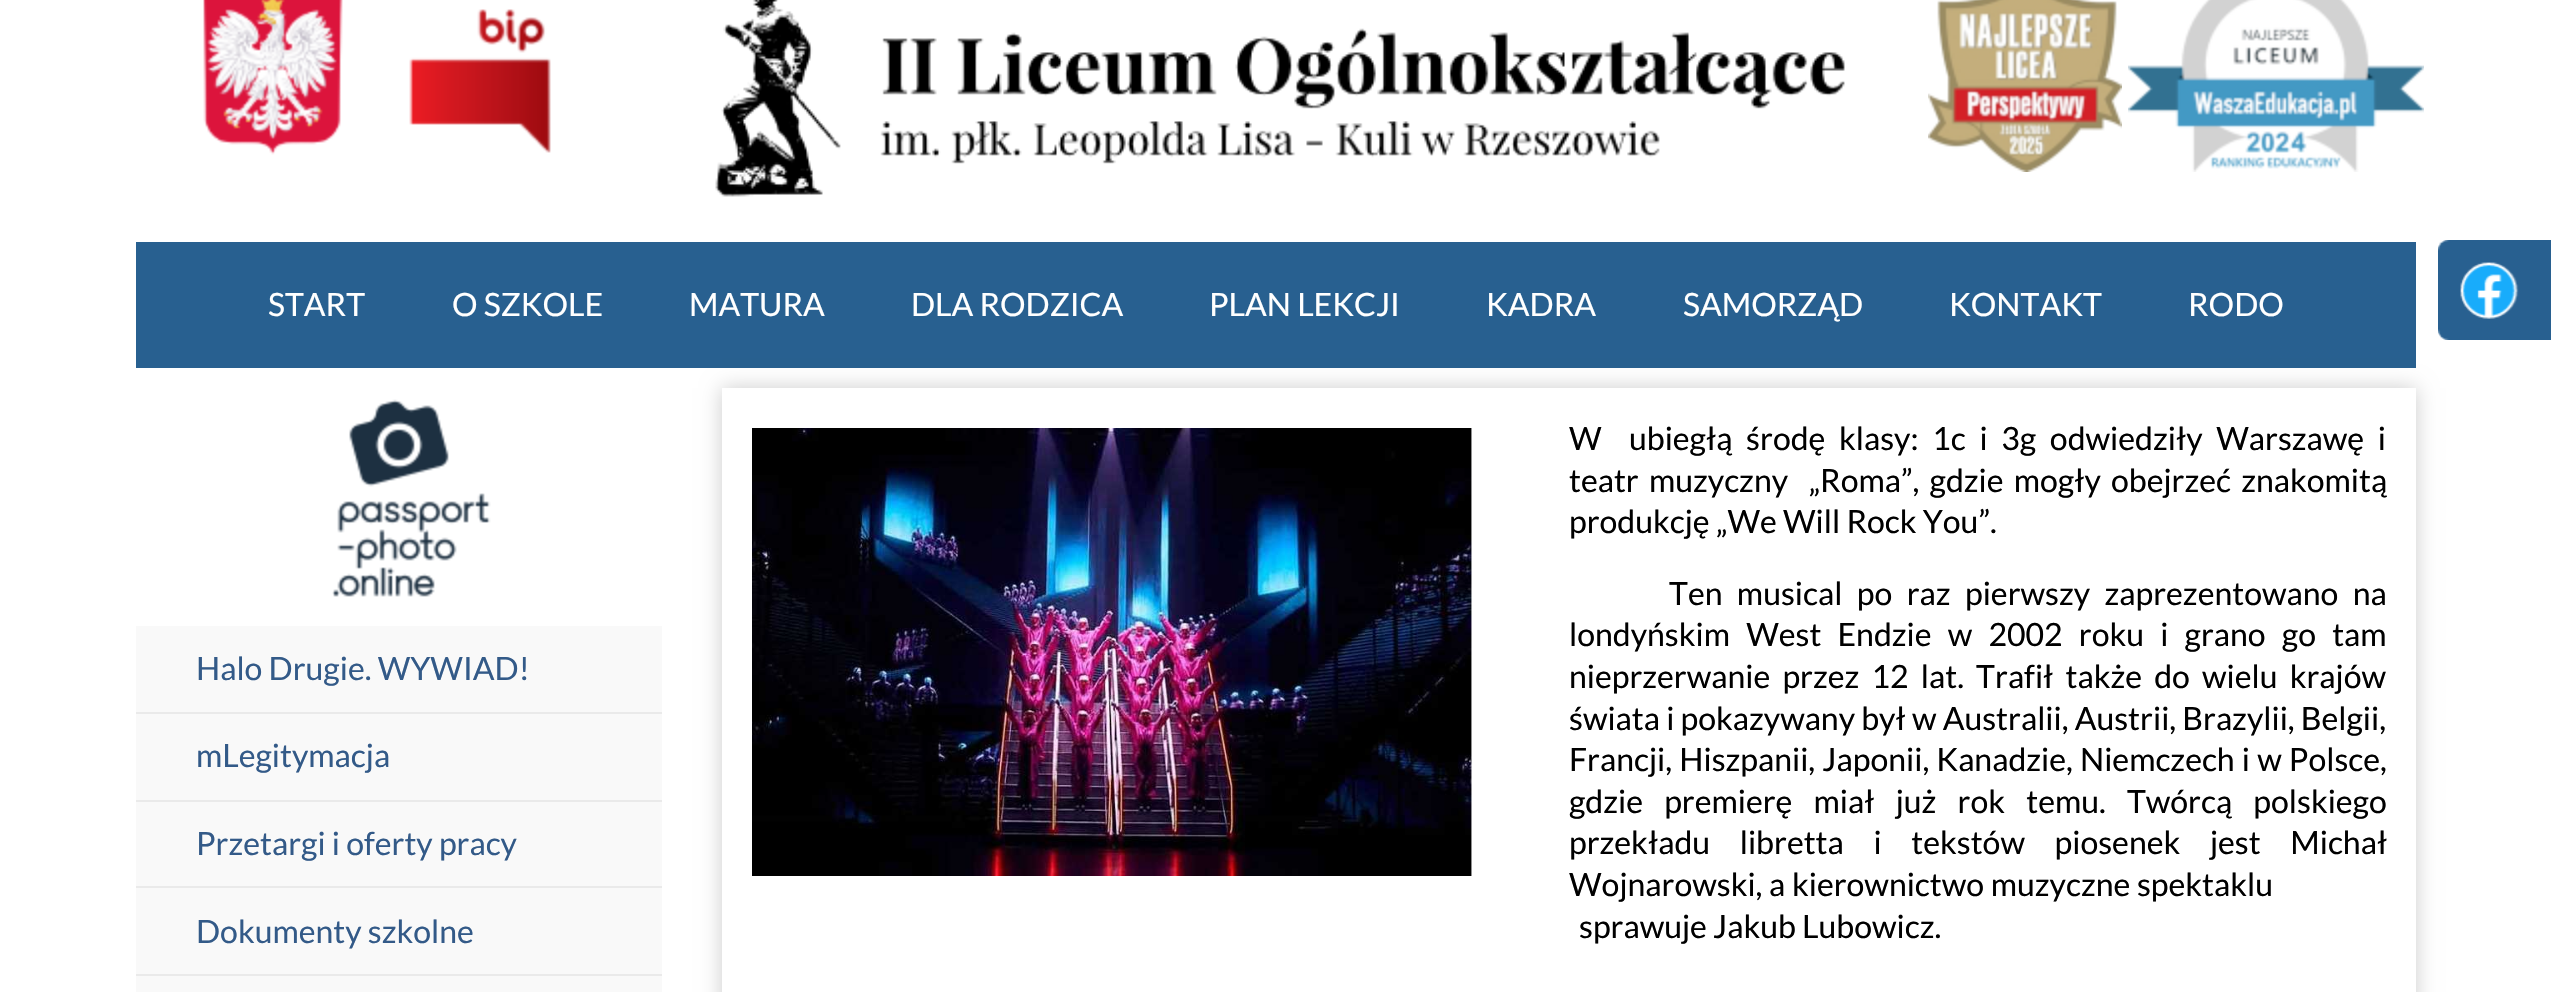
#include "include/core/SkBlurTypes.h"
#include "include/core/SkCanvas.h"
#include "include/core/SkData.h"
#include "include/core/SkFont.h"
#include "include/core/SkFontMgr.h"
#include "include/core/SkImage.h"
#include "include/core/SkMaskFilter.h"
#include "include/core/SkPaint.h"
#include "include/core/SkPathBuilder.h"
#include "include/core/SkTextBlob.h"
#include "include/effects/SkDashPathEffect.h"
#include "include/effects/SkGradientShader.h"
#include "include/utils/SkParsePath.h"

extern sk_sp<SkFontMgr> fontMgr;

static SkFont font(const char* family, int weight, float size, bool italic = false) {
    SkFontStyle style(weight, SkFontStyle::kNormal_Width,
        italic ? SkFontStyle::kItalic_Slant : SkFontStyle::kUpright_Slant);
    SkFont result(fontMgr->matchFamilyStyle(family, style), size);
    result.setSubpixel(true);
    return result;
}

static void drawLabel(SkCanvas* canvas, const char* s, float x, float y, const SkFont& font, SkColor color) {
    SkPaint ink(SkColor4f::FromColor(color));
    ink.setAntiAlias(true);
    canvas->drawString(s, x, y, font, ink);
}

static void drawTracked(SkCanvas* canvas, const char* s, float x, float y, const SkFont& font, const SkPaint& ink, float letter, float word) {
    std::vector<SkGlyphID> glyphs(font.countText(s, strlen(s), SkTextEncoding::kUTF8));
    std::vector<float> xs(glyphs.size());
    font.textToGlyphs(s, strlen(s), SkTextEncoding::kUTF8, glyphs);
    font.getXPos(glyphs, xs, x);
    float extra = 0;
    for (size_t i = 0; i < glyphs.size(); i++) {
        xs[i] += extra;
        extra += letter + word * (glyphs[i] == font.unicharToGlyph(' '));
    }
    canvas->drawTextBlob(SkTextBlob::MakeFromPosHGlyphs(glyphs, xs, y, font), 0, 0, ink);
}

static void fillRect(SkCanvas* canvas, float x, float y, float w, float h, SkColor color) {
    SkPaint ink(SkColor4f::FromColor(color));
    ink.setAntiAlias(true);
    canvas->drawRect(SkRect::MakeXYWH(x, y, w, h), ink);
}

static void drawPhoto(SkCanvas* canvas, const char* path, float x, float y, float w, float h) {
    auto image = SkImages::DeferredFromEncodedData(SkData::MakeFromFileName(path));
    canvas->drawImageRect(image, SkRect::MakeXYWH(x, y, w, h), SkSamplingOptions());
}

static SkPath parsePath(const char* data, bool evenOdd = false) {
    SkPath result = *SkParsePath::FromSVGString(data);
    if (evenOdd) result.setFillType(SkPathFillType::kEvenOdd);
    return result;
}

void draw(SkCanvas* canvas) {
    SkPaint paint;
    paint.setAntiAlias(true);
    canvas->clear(0xFFFFFFFF);
    drawPhoto(canvas, "assets/img1.png", 203, 0, 140, 155);
    drawPhoto(canvas, "assets/img2.png", 409, 9, 142, 144);
    drawPhoto(canvas, "assets/img3.png", 715, 0, 1130, 197);
    drawPhoto(canvas, "assets/img4.png", 1928, 0, 194, 172);
    drawPhoto(canvas, "assets/img5.png", 2128, 0, 296, 172);
    fillRect(canvas, 136, 242, 2280, 126, 0xFF286090);
    SkFont font1 = font("Lato", 400, 32);
    drawLabel(canvas, "START", 268, 316, font1, 0xFFFFFFFF);
    drawLabel(canvas, "O SZKOLE", 452, 316, font1, 0xFFFFFFFF);
    drawLabel(canvas, "MATURA", 689, 316, font1, 0xFFFFFFFF);
    drawLabel(canvas, "DLA RODZICA", 911, 316, font1, 0xFFFFFFFF);
    drawLabel(canvas, "PLAN LEKCJI", 1209, 316, font1, 0xFFFFFFFF);
    drawLabel(canvas, "KADRA", 1486, 316, font1, 0xFFFFFFFF);
    drawLabel(canvas, "SAMORZĄD", 1683, 316, font1, 0xFFFFFFFF);
    drawLabel(canvas, "KONTAKT", 1949, 316, font1, 0xFFFFFFFF);
    drawLabel(canvas, "RODO", 2188, 316, font1, 0xFFFFFFFF);
    drawPhoto(canvas, "assets/img6.png", 2438, 240, 113, 100);
    drawPhoto(canvas, "assets/img7.png", 332, 399, 159, 198);
    fillRect(canvas, 136, 626, 526, 86, 0xFFF9F9F9);
    drawLabel(canvas, "Halo Drugie. WYWIAD!", 196, 680, font1, 0xFF335A88);
    fillRect(canvas, 136, 712, 526, 2, 0xFFEAEAEA);
    fillRect(canvas, 136, 714, 526, 86, 0xFFF9F9F9);
    drawLabel(canvas, "mLegitymacja", 196, 767, font1, 0xFF335A88);
    fillRect(canvas, 136, 800, 526, 2, 0xFFEAEAEA);
    fillRect(canvas, 136, 802, 526, 84, 0xFFF9F9F9);
    drawLabel(canvas, "Przetargi i oferty pracy", 196, 855, font1, 0xFF335A88);
    fillRect(canvas, 136, 886, 526, 2, 0xFFEAEAEA);
    fillRect(canvas, 136, 888, 526, 86, 0xFFF9F9F9);
    drawLabel(canvas, "Dokumenty szkolne", 196, 943, font1, 0xFF335A88);
    fillRect(canvas, 136, 974, 526, 2, 0xFFEAEAEA);
    fillRect(canvas, 136, 976, 526, 16, 0xFFF9F9F9);
    canvas->save();
    canvas->clipPath(parsePath("M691 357H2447V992H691ZM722 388H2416V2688H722Z", true), true);
    paint.setColor(0x33000000);
    paint.setMaskFilter(SkMaskFilter::MakeBlur(kNormal_SkBlurStyle, 10));
    canvas->drawRect(SkRect::MakeXYWH(722, 388, 1694, 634), paint);
    paint.setMaskFilter(nullptr);
    canvas->restore();
    drawPhoto(canvas, "assets/img8.png", 752, 428, 720, 448);
    paint.setColor(0xFF000000);
    drawTracked(canvas, "W  ubiegłą środę klasy: 1c i 3g odwiedziły Warszawę i", 1569, 450, font1, paint, 0, 7.5f);
    drawTracked(canvas, "teatr muzyczny  „Roma”, gdzie mogły obejrzeć znakomitą", 1569, 492, font1, paint, 0, 4);
    drawLabel(canvas, "produkcję „We Will Rock You”.", 1569, 533, font1, 0xFF000000);
    drawTracked(canvas, "Ten musical po raz pierwszy zaprezentowano na", 1669, 605, font1, paint, 0, 8.25f);
    drawTracked(canvas, "londyńskim West Endzie w 2002 roku i grano go tam", 1569, 646, font1, paint, 0, 10);
    drawTracked(canvas, "nieprzerwanie przez 12 lat. Trafił także do wielu krajów", 1569, 688, font1, paint, 0, 6);
    drawLabel(canvas, "świata i pokazywany był w Australii, Austrii, Brazylii, Belgii,", 1569, 730, font1, 0xFF000000);
    drawTracked(canvas, "Francji, Hiszpanii, Japonii, Kanadzie, Niemczech i w Polsce,", 1569, 771, font1, paint, 0, 1);
    drawTracked(canvas, "gdzie premierę miał już rok temu. Twórcą polskiego", 1569, 813, font1, paint, 0, 15);
    drawTracked(canvas, "przekładu libretta i tekstów piosenek jest Michał", 1569, 854, font1, paint, 0, 23.5f);
    drawTracked(canvas, "Wojnarowski, a kierownictwo muzyczne spektaklu", 1569, 896, font1, paint, 0, 0.5f);
    drawLabel(canvas, "sprawuje Jakub Lubowicz.", 1579, 938, font1, 0xFF000000);
}
